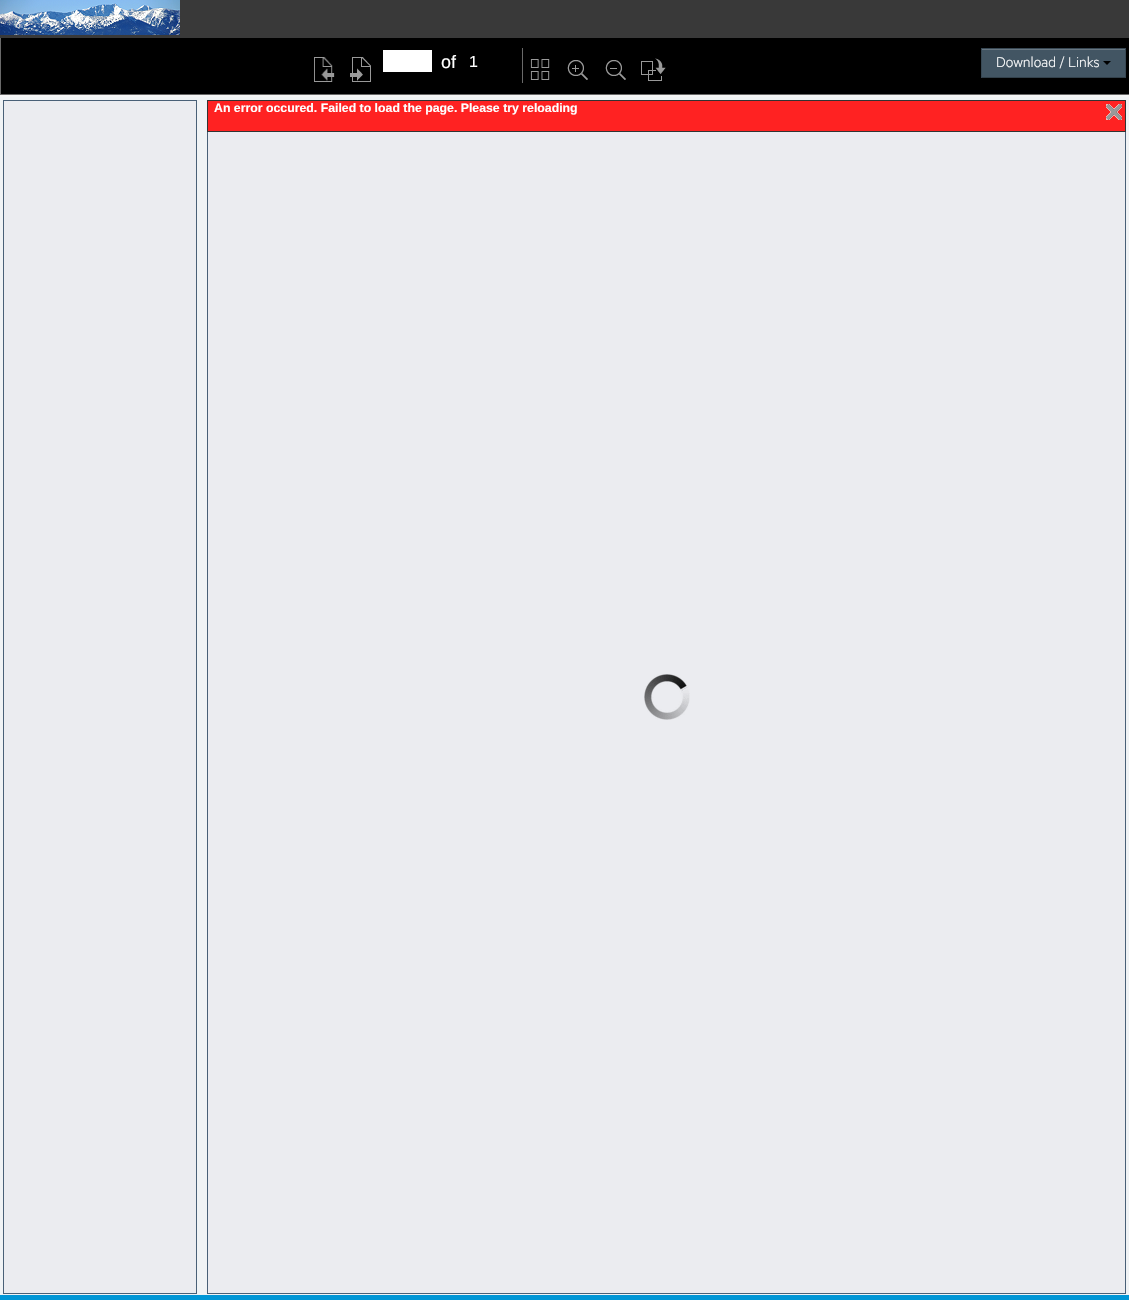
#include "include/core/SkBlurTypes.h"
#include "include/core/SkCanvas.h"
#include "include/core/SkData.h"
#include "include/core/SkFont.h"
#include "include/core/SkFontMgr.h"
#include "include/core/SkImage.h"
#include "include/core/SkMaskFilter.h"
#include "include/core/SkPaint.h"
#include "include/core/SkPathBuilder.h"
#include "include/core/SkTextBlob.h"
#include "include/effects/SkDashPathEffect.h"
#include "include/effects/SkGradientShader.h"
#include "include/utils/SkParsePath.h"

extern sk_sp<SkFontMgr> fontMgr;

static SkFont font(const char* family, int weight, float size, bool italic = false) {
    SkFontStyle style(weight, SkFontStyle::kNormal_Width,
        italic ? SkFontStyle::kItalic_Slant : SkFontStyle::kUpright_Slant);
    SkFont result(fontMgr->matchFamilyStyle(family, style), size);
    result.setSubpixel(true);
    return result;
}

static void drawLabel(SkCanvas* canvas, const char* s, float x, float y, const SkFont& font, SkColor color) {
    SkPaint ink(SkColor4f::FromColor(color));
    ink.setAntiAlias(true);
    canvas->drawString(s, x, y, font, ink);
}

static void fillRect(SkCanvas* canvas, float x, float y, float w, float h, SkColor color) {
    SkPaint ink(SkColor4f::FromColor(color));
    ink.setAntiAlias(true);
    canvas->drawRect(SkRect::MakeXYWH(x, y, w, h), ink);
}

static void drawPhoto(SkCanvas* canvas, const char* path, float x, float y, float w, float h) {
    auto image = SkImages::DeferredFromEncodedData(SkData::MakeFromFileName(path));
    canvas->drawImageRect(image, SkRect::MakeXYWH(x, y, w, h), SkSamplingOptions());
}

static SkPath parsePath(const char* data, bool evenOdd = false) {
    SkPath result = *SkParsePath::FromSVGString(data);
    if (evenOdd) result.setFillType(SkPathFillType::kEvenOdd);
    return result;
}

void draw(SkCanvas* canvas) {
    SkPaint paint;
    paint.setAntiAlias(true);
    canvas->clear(0xFFF5F5F5);
    paint.setColor(0xFF000000);
    canvas->drawRect(SkRect::MakeXYWH(0.5f, 37.5f, 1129, 57), paint);
    paint.setStroke(true);
    paint.setStrokeWidth(1);
    paint.setColor(0xFF696969);
    canvas->drawRect(SkRect::MakeXYWH(0.5f, 37.5f, 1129, 57), paint);
    fillRect(canvas, 0, 0, 1129, 38, 0xFF393939);
    drawPhoto(canvas, "assets/img1.png", 0, 0, 180, 35);
    fillRect(canvas, 522, 48, 1, 35, 0xFF696969);
    drawPhoto(canvas, "assets/img2.png", 314, 57, 21, 25);
    drawPhoto(canvas, "assets/img3.png", 350, 57, 21, 25);
    fillRect(canvas, 383, 50, 49, 22, 0xFFFFFFFF);
    SkFont font1 = font("Liberation Sans", 400, 18);
    drawLabel(canvas, "of", 441, 68, font1, 0xFFFFFFFF);
    SkFont font2 = font("Liberation Sans", 400, 16);
    drawLabel(canvas, "1", 469, 67, font2, 0xFFFFFFFF);
    drawPhoto(canvas, "assets/img4.png", 530, 59, 20, 21);
    drawPhoto(canvas, "assets/img5.png", 567, 60, 21, 20);
    drawPhoto(canvas, "assets/img6.png", 605, 60, 21, 20);
    drawPhoto(canvas, "assets/img7.png", 641, 58, 25, 23);
    fillRect(canvas, 981, 48, 145, 30, 0xFF425563);
    fillRect(canvas, 982, 49, 143, 1, 0xFF687782);
    paint.setStroke(false);
    paint.setColor(0xFF384854);
    canvas->drawPath(parsePath("M981 48H1126L1125 49H982Z"), paint);
    paint.setColor(0x26000000);
    canvas->drawPath(parsePath("M1126 48V78L1125 77V49Z"), paint);
    paint.setColor(0x40000000);
    canvas->drawPath(parsePath("M1126 78H981L982 77H1125Z"), paint);
    paint.setColor(0x26000000);
    canvas->drawPath(parsePath("M981 78V48L982 49V77Z"), paint);
    SkFont font3 = font("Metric", 300, 16);
    drawLabel(canvas, "Download / Links", 996, 67, font3, 0xFFFFFFFF);
    paint.setColor(0xFF000000);
    canvas->drawPath(parsePath("M1103 61H1111L1107 65Z"), paint);
    fillRect(canvas, 0, 97, 1129, 1198, 0xFFF0F3F5);
    paint.setColor(0xFFEBECF0);
    canvas->drawRect(SkRect::MakeXYWH(3.5f, 100.5f, 193, 1193), paint);
    paint.setStroke(true);
    paint.setColor(0xFF496077);
    canvas->drawRect(SkRect::MakeXYWH(3.5f, 100.5f, 193, 1193), paint);
    fillRect(canvas, 208, 132, 917, 1161, 0xFFEBECF0);
    drawPhoto(canvas, "assets/img8.png", 644, 674, 46, 46);
    canvas->drawRect(SkRect::MakeXYWH(207.5f, 100.5f, 918, 1193), paint);
    paint.setStroke(false);
    paint.setColor(0xFFFF2222);
    canvas->drawRect(SkRect::MakeXYWH(207.5f, 100.5f, 918, 31), paint);
    paint.setStroke(true);
    paint.setColor(0xFF333333);
    canvas->drawRect(SkRect::MakeXYWH(207.5f, 100.5f, 918, 31), paint);
    SkFont font4 = font("Liberation Sans", 700, 12.3f);
    drawLabel(canvas, "An error occured. Failed to load the page. Please try reloading", 214, 112, font4, 0xFFFFFFFF);
    drawPhoto(canvas, "assets/img9.png", 1106, 104, 16, 16);
    fillRect(canvas, 0, 1295, 1129, 5, 0xFF0096D6);
}
